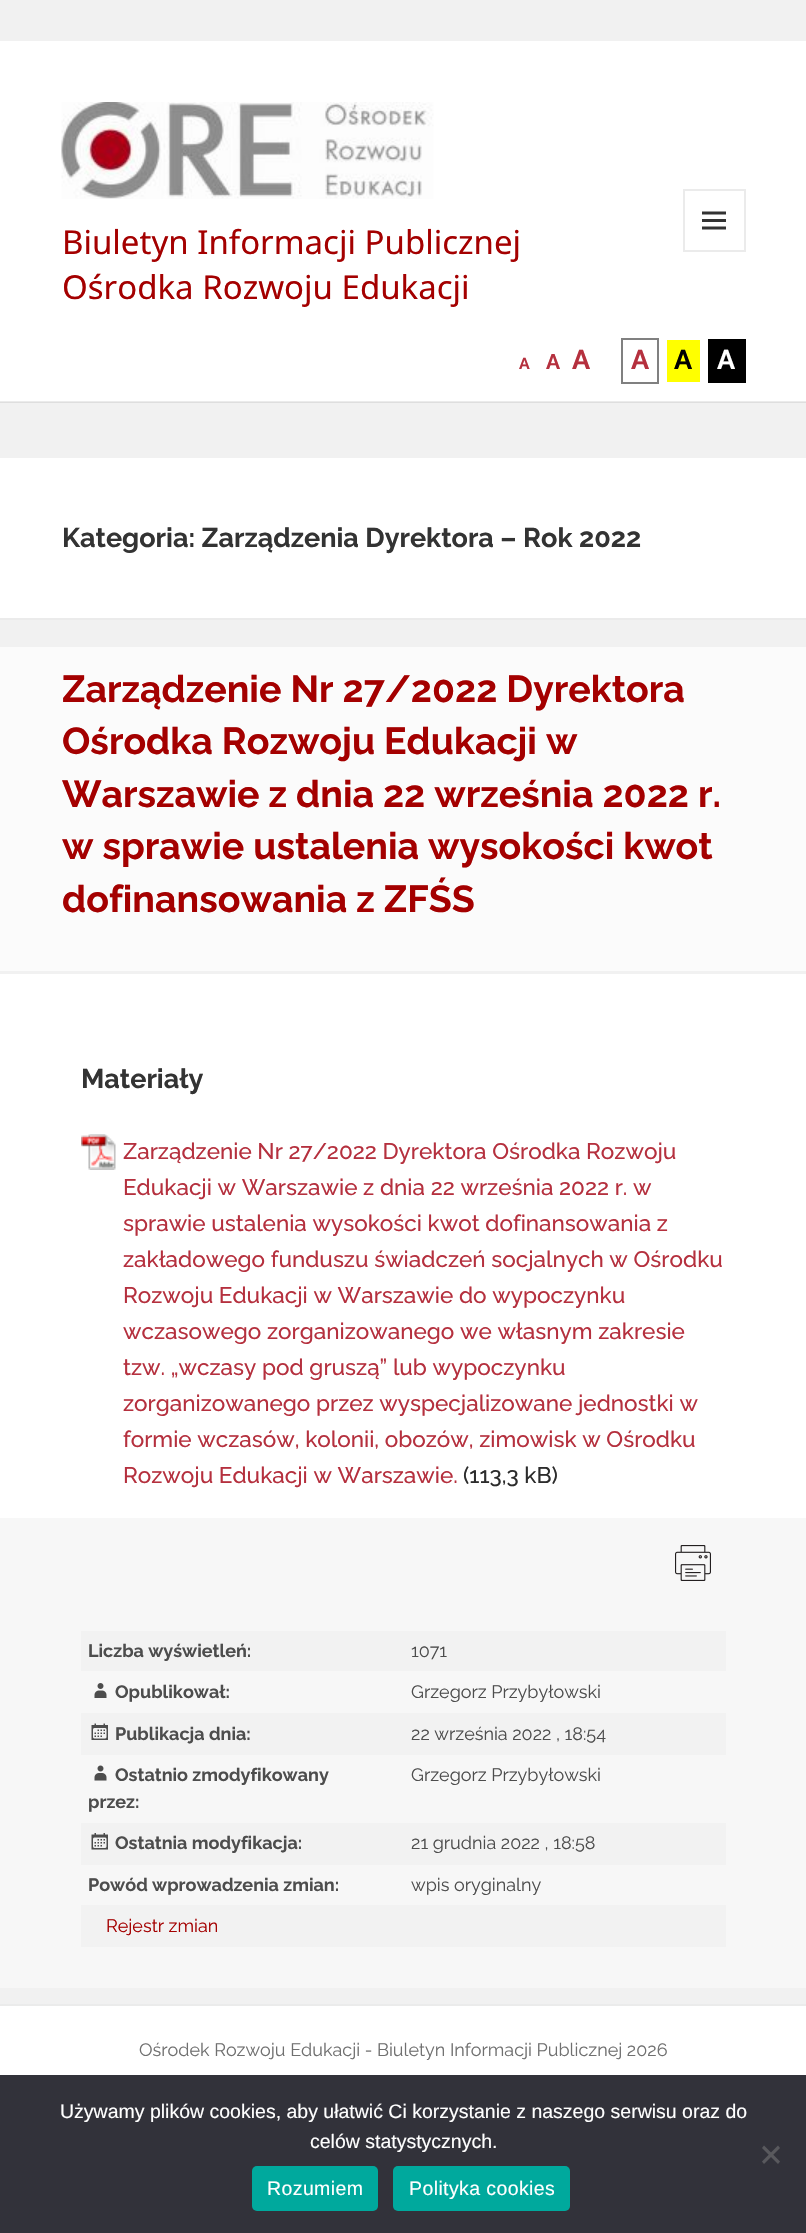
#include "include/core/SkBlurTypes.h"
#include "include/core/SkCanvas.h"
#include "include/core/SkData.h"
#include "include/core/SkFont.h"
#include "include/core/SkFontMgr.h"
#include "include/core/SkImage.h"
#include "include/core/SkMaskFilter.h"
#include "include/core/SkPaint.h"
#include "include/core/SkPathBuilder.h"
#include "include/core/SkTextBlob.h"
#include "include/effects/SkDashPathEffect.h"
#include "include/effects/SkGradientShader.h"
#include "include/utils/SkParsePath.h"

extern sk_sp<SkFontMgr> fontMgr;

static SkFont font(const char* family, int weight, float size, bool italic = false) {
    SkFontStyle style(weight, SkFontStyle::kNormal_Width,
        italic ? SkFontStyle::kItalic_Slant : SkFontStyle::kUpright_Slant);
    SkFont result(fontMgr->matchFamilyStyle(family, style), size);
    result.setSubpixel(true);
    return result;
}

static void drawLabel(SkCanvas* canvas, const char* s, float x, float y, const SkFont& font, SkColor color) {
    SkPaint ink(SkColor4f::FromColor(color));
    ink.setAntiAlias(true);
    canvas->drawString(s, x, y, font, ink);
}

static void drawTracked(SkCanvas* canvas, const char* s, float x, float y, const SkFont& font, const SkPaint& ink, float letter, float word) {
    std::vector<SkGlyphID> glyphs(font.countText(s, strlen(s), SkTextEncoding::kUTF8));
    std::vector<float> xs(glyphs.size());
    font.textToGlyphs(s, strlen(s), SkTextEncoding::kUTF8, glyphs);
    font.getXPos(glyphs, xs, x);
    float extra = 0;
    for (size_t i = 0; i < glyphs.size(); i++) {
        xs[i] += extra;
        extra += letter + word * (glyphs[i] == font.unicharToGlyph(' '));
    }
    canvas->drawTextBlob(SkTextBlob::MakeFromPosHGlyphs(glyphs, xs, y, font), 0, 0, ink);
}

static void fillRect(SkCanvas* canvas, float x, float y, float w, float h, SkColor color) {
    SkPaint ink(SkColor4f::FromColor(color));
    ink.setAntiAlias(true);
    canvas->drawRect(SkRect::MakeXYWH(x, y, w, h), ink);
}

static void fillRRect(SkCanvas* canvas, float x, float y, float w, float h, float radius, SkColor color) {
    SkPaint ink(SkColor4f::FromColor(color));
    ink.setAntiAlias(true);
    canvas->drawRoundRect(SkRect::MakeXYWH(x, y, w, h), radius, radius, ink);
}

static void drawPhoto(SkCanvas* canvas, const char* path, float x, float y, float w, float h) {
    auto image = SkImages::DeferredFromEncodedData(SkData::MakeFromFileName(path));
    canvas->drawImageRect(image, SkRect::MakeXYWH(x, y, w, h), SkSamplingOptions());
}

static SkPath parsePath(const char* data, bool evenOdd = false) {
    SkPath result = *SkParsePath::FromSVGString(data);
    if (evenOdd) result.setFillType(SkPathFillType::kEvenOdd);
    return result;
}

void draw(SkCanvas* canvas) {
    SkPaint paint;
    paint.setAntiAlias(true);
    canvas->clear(0xFFF1F1F1);
    fillRect(canvas, 0, 402, 806, 1, 0xFFDEDEDE);
    fillRect(canvas, 0, 41, 806, 360, 0xFFFFFFFF);
    fillRect(canvas, 0, 401, 806, 1, 0xFFEBEBEB);
    drawPhoto(canvas, "assets/img1.png", 61, 102, 373, 97);
    paint.setStroke(true);
    paint.setStrokeWidth(2);
    paint.setColor(0xFFEBEBEB);
    canvas->drawRect(SkRect::MakeXYWH(684, 190, 61, 61), paint);
    drawPhoto(canvas, "assets/img2.png", 702, 211, 24, 19);
    SkFont font1 = font("Noto Sans", 400, 33);
    drawLabel(canvas, "Biuletyn Informacji Publicznej", 62, 254, font1, 0xFFA40000);
    drawLabel(canvas, "Ośrodka Rozwoju Edukacji", 62, 299, font1, 0xFFA40000);
    SkFont font2 = font("Raleway", 700, 16);
    drawLabel(canvas, "A", 519, 369, font2, 0xFFB5303E);
    SkFont font3 = font("Raleway", 700, 21);
    drawLabel(canvas, "A", 546, 369, font3, 0xFFB5303E);
    SkFont font4 = font("Raleway", 700, 27);
    drawLabel(canvas, "A", 572, 369, font4, 0xFFB5303E);
    paint.setColor(0xFF808080);
    canvas->drawRect(SkRect::MakeXYWH(622, 339, 36, 44), paint);
    drawLabel(canvas, "A", 631, 369, font4, 0xFFB5303E);
    fillRect(canvas, 667, 340, 33, 42, 0xFFFFFF00);
    drawLabel(canvas, "A", 674, 369, font4, 0xFF000000);
    fillRect(canvas, 708, 339, 38, 44, 0xFF000000);
    drawLabel(canvas, "A", 717, 369, font4, 0xFFFFFFFF);
    fillRect(canvas, 0, 458, 806, 160, 0xFFFFFFFF);
    fillRect(canvas, 0, 618, 806, 2, 0xFFEBEBEB);
    drawLabel(canvas, "Kategoria: Zarządzenia Dyrektora – Rok 2022", 62, 547, font4, 0xFF333333);
    fillRect(canvas, 0, 974, 806, 544, 0xFFFFFFFF);
    fillRect(canvas, 0, 647, 806, 324, 0xFFFBFBFB);
    SkFont font5 = font("Raleway", 700, 37.5f);
    drawLabel(canvas, "Zarządzenie Nr 27/2022 Dyrektora", 62, 702, font5, 0xFFA40000);
    drawLabel(canvas, "Ośrodka Rozwoju Edukacji w", 62, 754, font5, 0xFFA40000);
    drawLabel(canvas, "Warszawie z dnia 22 września 2022 r.", 62, 807, font5, 0xFFA40000);
    drawLabel(canvas, "w sprawie ustalenia wysokości kwot", 62, 859, font5, 0xFFA40000);
    drawLabel(canvas, "dofinansowania z ZFŚS", 62, 912, font5, 0xFFA40000);
    drawLabel(canvas, "Materiały", 81, 1088, font4, 0xFF333333);
    drawPhoto(canvas, "assets/img3.png", 81, 1134, 35, 36);
    SkFont font6 = font("Raleway", 500, 22.5f);
    drawLabel(canvas, "Zarządzenie Nr 27/2022 Dyrektora Ośrodka Rozwoju", 123, 1159, font6, 0xFFB5303E);
    drawLabel(canvas, "Edukacji w Warszawie z dnia 22 września 2022 r. w", 123, 1195, font6, 0xFFB5303E);
    drawLabel(canvas, "sprawie ustalenia wysokości kwot dofinansowania z", 123, 1231, font6, 0xFFB5303E);
    drawLabel(canvas, "zakładowego funduszu świadczeń socjalnych w Ośrodku", 123, 1267, font6, 0xFFB5303E);
    drawLabel(canvas, "Rozwoju Edukacji w Warszawie do wypoczynku", 123, 1303, font6, 0xFFB5303E);
    drawLabel(canvas, "wczasowego zorganizowanego we własnym zakresie", 123, 1339, font6, 0xFFB5303E);
    drawLabel(canvas, "tzw. „wczasy pod gruszą” lub wypoczynku", 123, 1375, font6, 0xFFB5303E);
    drawLabel(canvas, "zorganizowanego przez wyspecjalizowane jednostki w", 123, 1411, font6, 0xFFB5303E);
    drawLabel(canvas, "formie wczasów, kolonii, obozów, zimowisk w Ośrodku", 123, 1447, font6, 0xFFB5303E);
    drawLabel(canvas, "Rozwoju Edukacji w Warszawie.", 123, 1483, font6, 0xFFB5303E);
    drawLabel(canvas, "(113,3 kB)", 463, 1483, font6, 0xFF2C2C2C);
    fillRect(canvas, 0, 1518, 806, 470, 0xFFF7F7F7);
    drawPhoto(canvas, "assets/img4.png", 675, 1545, 36, 36);
    fillRect(canvas, 81, 1631, 645, 40, 0xFFF2F2F2);
    SkFont font7 = font("Raleway", 700, 18);
    drawLabel(canvas, "Liczba wyświetleń:", 88, 1657, font7, 0xFF4D4D4D);
    SkFont font8 = font("Raleway", 400, 18);
    drawLabel(canvas, "1071", 411, 1657, font8, 0xFF4D4D4D);
    drawPhoto(canvas, "assets/img5.png", 94, 1683, 13, 15);
    drawLabel(canvas, "Opublikował:", 115, 1698, font7, 0xFF4D4D4D);
    drawLabel(canvas, "Grzegorz Przybyłowski", 411, 1698, font8, 0xFF4D4D4D);
    fillRect(canvas, 81, 1713, 645, 42, 0xFFF2F2F2);
    drawPhoto(canvas, "assets/img6.png", 91, 1723, 17, 17);
    drawLabel(canvas, "Publikacja dnia:", 115, 1740, font7, 0xFF4D4D4D);
    drawLabel(canvas, "22 września 2022 , 18:54", 411, 1740, font8, 0xFF4D4D4D);
    drawPhoto(canvas, "assets/img7.png", 94, 1765, 13, 16);
    drawLabel(canvas, "Ostatnio zmodyfikowany", 115, 1781, font7, 0xFF4D4D4D);
    drawLabel(canvas, "przez:", 88, 1808, font7, 0xFF4D4D4D);
    drawLabel(canvas, "Grzegorz Przybyłowski", 411, 1781, font8, 0xFF4D4D4D);
    fillRect(canvas, 81, 1823, 645, 42, 0xFFF2F2F2);
    drawPhoto(canvas, "assets/img8.png", 91, 1833, 17, 17);
    drawLabel(canvas, "Ostatnia modyfikacja:", 115, 1849, font7, 0xFF4D4D4D);
    drawLabel(canvas, "21 grudnia 2022 , 18:58", 411, 1849, font8, 0xFF4D4D4D);
    drawLabel(canvas, "Powód wprowadzenia zmian:", 88, 1891, font7, 0xFF4D4D4D);
    drawLabel(canvas, "wpis oryginalny", 411, 1891, font8, 0xFF4D4D4D);
    fillRect(canvas, 81, 1905, 645, 42, 0xFFF2F2F2);
    drawLabel(canvas, "Rejestr zmian", 106, 1932, font8, 0xFFA40000);
    fillRect(canvas, 0, 2006, 806, 69, 0xFFFFFFFF);
    fillRect(canvas, 0, 2004, 806, 2, 0xFFEBEBEB);
    drawLabel(canvas, "Ośrodek Rozwoju Edukacji - Biuletyn Informacji Publicznej 2026", 139, 2056, font8, 0xFF707070);
    fillRect(canvas, 0, 2075, 806, 158, 0xFF32323A);
    SkFont font9 = font("Liberation Sans", 400, 19.5f);
    drawLabel(canvas, "Używamy plików cookies, aby ułatwić Ci korzystanie z naszego serwisu oraz do", 60, 2118, font9, 0xFFFFFFFF);
    drawLabel(canvas, "celów statystycznych.", 310, 2148, font9, 0xFFFFFFFF);
    paint.setStroke(false);
    paint.setColor(0xFF59595D);
    canvas->drawPath(parsePath("M778 2145.5L780 2148L764 2164L762 2161.5Z"), paint);
    canvas->drawPath(parsePath("M762 2148L764 2145.5L780 2161.5L778 2164Z"), paint);
    fillRRect(canvas, 252, 2166, 126, 45, 5, 0xFF00A99D);
    paint.setColor(0xFFFFFFFF);
    drawTracked(canvas, "Rozumiem", 267, 2195, font9, paint, 0.4f, 0);
    fillRRect(canvas, 393, 2166, 177, 45, 5, 0xFF00A99D);
    drawTracked(canvas, "Polityka cookies", 409, 2195, font9, paint, 0.4f, 0);
}
